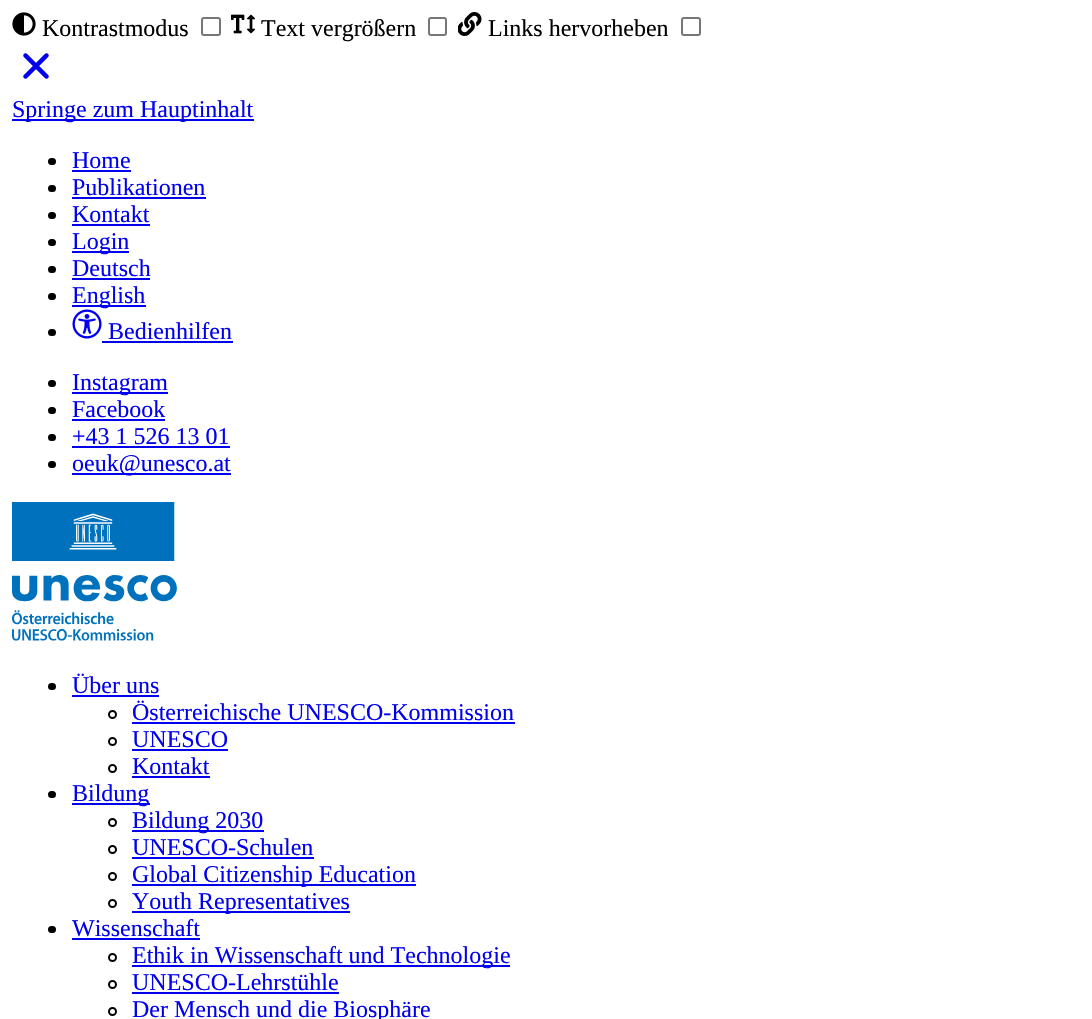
#include "include/core/SkBlurTypes.h"
#include "include/core/SkCanvas.h"
#include "include/core/SkData.h"
#include "include/core/SkFont.h"
#include "include/core/SkFontMgr.h"
#include "include/core/SkImage.h"
#include "include/core/SkMaskFilter.h"
#include "include/core/SkPaint.h"
#include "include/core/SkPathBuilder.h"
#include "include/core/SkTextBlob.h"
#include "include/effects/SkDashPathEffect.h"
#include "include/effects/SkGradientShader.h"
#include "include/utils/SkParsePath.h"

extern sk_sp<SkFontMgr> fontMgr;

static SkFont font(const char* family, int weight, float size, bool italic = false) {
    SkFontStyle style(weight, SkFontStyle::kNormal_Width,
        italic ? SkFontStyle::kItalic_Slant : SkFontStyle::kUpright_Slant);
    SkFont result(fontMgr->matchFamilyStyle(family, style), size);
    result.setSubpixel(true);
    return result;
}

static void drawLabel(SkCanvas* canvas, const char* s, float x, float y, const SkFont& font, SkColor color) {
    SkPaint ink(SkColor4f::FromColor(color));
    ink.setAntiAlias(true);
    canvas->drawString(s, x, y, font, ink);
}

static void fillRect(SkCanvas* canvas, float x, float y, float w, float h, SkColor color) {
    SkPaint ink(SkColor4f::FromColor(color));
    ink.setAntiAlias(true);
    canvas->drawRect(SkRect::MakeXYWH(x, y, w, h), ink);
}

static void fillRRect(SkCanvas* canvas, float x, float y, float w, float h, float radius, SkColor color) {
    SkPaint ink(SkColor4f::FromColor(color));
    ink.setAntiAlias(true);
    canvas->drawRoundRect(SkRect::MakeXYWH(x, y, w, h), radius, radius, ink);
}

static void drawPhoto(SkCanvas* canvas, const char* path, float x, float y, float w, float h) {
    auto image = SkImages::DeferredFromEncodedData(SkData::MakeFromFileName(path));
    canvas->drawImageRect(image, SkRect::MakeXYWH(x, y, w, h), SkSamplingOptions());
}

void draw(SkCanvas* canvas) {
    SkPaint paint;
    paint.setAntiAlias(true);
    canvas->clear(0xFFFFFFFF);
    drawPhoto(canvas, "assets/img1.png", 12, 12, 24, 24);
    SkFont font1 = font("Liberation Serif", 400, 24);
    drawLabel(canvas, "Kontrastmodus", 42, 36, font1, 0xFF000000);
    paint.setStroke(true);
    paint.setStrokeWidth(2);
    paint.setColor(0xFF767676);
    canvas->drawRoundRect(SkRect::MakeXYWH(202, 18, 18, 17), 2, 2, paint);
    drawPhoto(canvas, "assets/img2.png", 231, 14, 24, 20);
    drawLabel(canvas, "Text vergrößern", 261, 36, font1, 0xFF000000);
    canvas->drawRoundRect(SkRect::MakeXYWH(429, 18, 17, 17), 2, 2, paint);
    drawPhoto(canvas, "assets/img3.png", 458, 12, 24, 24);
    drawLabel(canvas, "Links hervorheben", 488, 36, font1, 0xFF000000);
    canvas->drawRoundRect(SkRect::MakeXYWH(682, 18, 18, 17), 2, 2, paint);
    drawPhoto(canvas, "assets/img4.png", 23, 53, 26, 26);
    fillRect(canvas, 12, 119, 242, 2, 0xFF0000EE);
    drawLabel(canvas, "Springe zum Hauptinhalt", 12, 117, font1, 0xFF0000EE);
    fillRRect(canvas, 48, 158, 8, 7, 3.5f, 0xFF000000);
    drawLabel(canvas, "Home", 72, 168, font1, 0xFF0000EE);
    fillRect(canvas, 72, 170, 59, 2, 0xFF0000EE);
    fillRRect(canvas, 48, 185, 8, 7, 3.5f, 0xFF000000);
    drawLabel(canvas, "Publikationen", 72, 195, font1, 0xFF0000EE);
    fillRect(canvas, 72, 197, 134, 2, 0xFF0000EE);
    fillRRect(canvas, 48, 212, 8, 7, 3.5f, 0xFF000000);
    drawLabel(canvas, "Kontakt", 72, 222, font1, 0xFF0000EE);
    fillRect(canvas, 72, 224, 78, 2, 0xFF0000EE);
    fillRRect(canvas, 48, 239, 8, 7, 3.5f, 0xFF000000);
    fillRect(canvas, 72, 251, 57, 2, 0xFF0000EE);
    drawLabel(canvas, "Login", 72, 249, font1, 0xFF0000EE);
    fillRRect(canvas, 48, 266, 8, 7, 3.5f, 0xFF000000);
    drawLabel(canvas, "Deutsch", 72, 276, font1, 0xFF0000EE);
    fillRect(canvas, 72, 278, 78, 2, 0xFF0000EE);
    fillRRect(canvas, 48, 293, 8, 7, 3.5f, 0xFF000000);
    fillRect(canvas, 72, 305, 74, 2, 0xFF0000EE);
    drawLabel(canvas, "English", 72, 303, font1, 0xFF0000EE);
    fillRRect(canvas, 48, 329, 8, 7, 3.5f, 0xFF000000);
    drawPhoto(canvas, "assets/img5.png", 72, 309, 30, 30);
    drawLabel(canvas, "Bedienhilfen", 108, 339, font1, 0xFF0000EE);
    fillRect(canvas, 102, 341, 131, 2, 0xFF0000EE);
    fillRRect(canvas, 48, 380, 8, 7, 3.5f, 0xFF000000);
    fillRect(canvas, 72, 392, 96, 2, 0xFF0000EE);
    drawLabel(canvas, "Instagram", 72, 390, font1, 0xFF0000EE);
    fillRRect(canvas, 48, 407, 8, 7, 3.5f, 0xFF000000);
    drawLabel(canvas, "Facebook", 72, 417, font1, 0xFF0000EE);
    fillRect(canvas, 72, 419, 93, 2, 0xFF0000EE);
    fillRRect(canvas, 48, 434, 8, 7, 3.5f, 0xFF000000);
    drawLabel(canvas, "+43 1 526 13 01", 72, 444, font1, 0xFF0000EE);
    fillRect(canvas, 72, 446, 158, 2, 0xFF0000EE);
    fillRRect(canvas, 48, 461, 8, 7, 3.5f, 0xFF000000);
    fillRect(canvas, 72, 473, 159, 2, 0xFF0000EE);
    drawLabel(canvas, "oeuk@unesco.at", 72, 471, font1, 0xFF0000EE);
    drawPhoto(canvas, "assets/img6.png", 12, 502, 165, 139);
    fillRRect(canvas, 48, 683, 8, 7, 3.5f, 0xFF000000);
    drawLabel(canvas, "Über uns", 72, 693, font1, 0xFF0000EE);
    fillRect(canvas, 72, 695, 87, 2, 0xFF0000EE);
    paint.setColor(0xFF000000);
    canvas->drawCircle(112.5f, 714.5f, 3.5f, paint);
    drawLabel(canvas, "Österreichische UNESCO-Kommission", 132, 720, font1, 0xFF0000EE);
    fillRect(canvas, 132, 722, 383, 2, 0xFF0000EE);
    canvas->drawCircle(112.5f, 741.5f, 3.5f, paint);
    drawLabel(canvas, "UNESCO", 132, 747, font1, 0xFF0000EE);
    fillRect(canvas, 132, 749, 96, 2, 0xFF0000EE);
    canvas->drawCircle(112.5f, 768.5f, 3.5f, paint);
    drawLabel(canvas, "Kontakt", 132, 774, font1, 0xFF0000EE);
    fillRect(canvas, 132, 776, 78, 2, 0xFF0000EE);
    fillRRect(canvas, 48, 791, 8, 7, 3.5f, 0xFF000000);
    fillRect(canvas, 72, 803, 78, 2, 0xFF0000EE);
    drawLabel(canvas, "Bildung", 72, 801, font1, 0xFF0000EE);
    canvas->drawCircle(112.5f, 822.5f, 3.5f, paint);
    fillRect(canvas, 132, 830, 132, 2, 0xFF0000EE);
    drawLabel(canvas, "Bildung 2030", 132, 828, font1, 0xFF0000EE);
    canvas->drawCircle(112.5f, 849.5f, 3.5f, paint);
    drawLabel(canvas, "UNESCO-Schulen", 132, 855, font1, 0xFF0000EE);
    fillRect(canvas, 132, 857, 182, 2, 0xFF0000EE);
    canvas->drawCircle(112.5f, 876.5f, 3.5f, paint);
    fillRect(canvas, 132, 884, 284, 2, 0xFF0000EE);
    drawLabel(canvas, "Global Citizenship Education", 132, 882, font1, 0xFF0000EE);
    canvas->drawCircle(112.5f, 903.5f, 3.5f, paint);
    fillRect(canvas, 132, 911, 218, 2, 0xFF0000EE);
    drawLabel(canvas, "Youth Representatives", 132, 909, font1, 0xFF0000EE);
    fillRRect(canvas, 48, 926, 8, 7, 3.5f, 0xFF000000);
    drawLabel(canvas, "Wissenschaft", 72, 936, font1, 0xFF0000EE);
    fillRect(canvas, 72, 938, 128, 2, 0xFF0000EE);
    canvas->drawCircle(112.5f, 957.5f, 3.5f, paint);
    fillRect(canvas, 132, 965, 378, 2, 0xFF0000EE);
    drawLabel(canvas, "Ethik in Wissenschaft und Technologie", 132, 963, font1, 0xFF0000EE);
    canvas->drawCircle(112.5f, 984.5f, 3.5f, paint);
    drawLabel(canvas, "UNESCO-Lehrstühle", 132, 990, font1, 0xFF0000EE);
    fillRect(canvas, 132, 992, 207, 2, 0xFF0000EE);
    canvas->drawCircle(112.5f, 1011.5f, 3.5f, paint);
    drawLabel(canvas, "Der Mensch und die Biosphäre", 132, 1017, font1, 0xFF0000EE);
}
